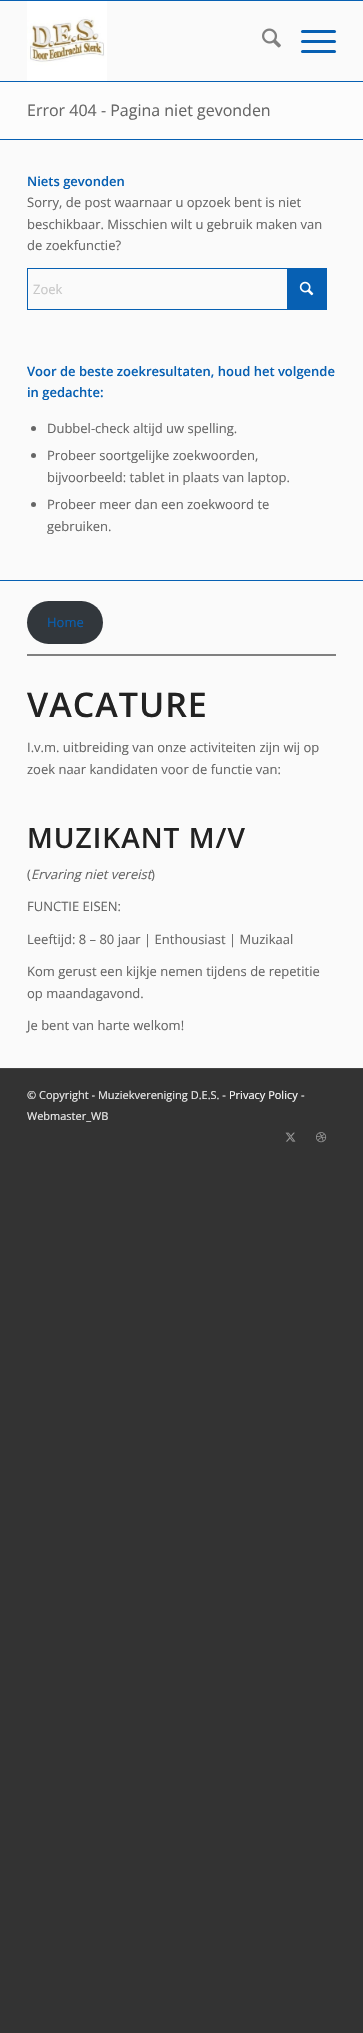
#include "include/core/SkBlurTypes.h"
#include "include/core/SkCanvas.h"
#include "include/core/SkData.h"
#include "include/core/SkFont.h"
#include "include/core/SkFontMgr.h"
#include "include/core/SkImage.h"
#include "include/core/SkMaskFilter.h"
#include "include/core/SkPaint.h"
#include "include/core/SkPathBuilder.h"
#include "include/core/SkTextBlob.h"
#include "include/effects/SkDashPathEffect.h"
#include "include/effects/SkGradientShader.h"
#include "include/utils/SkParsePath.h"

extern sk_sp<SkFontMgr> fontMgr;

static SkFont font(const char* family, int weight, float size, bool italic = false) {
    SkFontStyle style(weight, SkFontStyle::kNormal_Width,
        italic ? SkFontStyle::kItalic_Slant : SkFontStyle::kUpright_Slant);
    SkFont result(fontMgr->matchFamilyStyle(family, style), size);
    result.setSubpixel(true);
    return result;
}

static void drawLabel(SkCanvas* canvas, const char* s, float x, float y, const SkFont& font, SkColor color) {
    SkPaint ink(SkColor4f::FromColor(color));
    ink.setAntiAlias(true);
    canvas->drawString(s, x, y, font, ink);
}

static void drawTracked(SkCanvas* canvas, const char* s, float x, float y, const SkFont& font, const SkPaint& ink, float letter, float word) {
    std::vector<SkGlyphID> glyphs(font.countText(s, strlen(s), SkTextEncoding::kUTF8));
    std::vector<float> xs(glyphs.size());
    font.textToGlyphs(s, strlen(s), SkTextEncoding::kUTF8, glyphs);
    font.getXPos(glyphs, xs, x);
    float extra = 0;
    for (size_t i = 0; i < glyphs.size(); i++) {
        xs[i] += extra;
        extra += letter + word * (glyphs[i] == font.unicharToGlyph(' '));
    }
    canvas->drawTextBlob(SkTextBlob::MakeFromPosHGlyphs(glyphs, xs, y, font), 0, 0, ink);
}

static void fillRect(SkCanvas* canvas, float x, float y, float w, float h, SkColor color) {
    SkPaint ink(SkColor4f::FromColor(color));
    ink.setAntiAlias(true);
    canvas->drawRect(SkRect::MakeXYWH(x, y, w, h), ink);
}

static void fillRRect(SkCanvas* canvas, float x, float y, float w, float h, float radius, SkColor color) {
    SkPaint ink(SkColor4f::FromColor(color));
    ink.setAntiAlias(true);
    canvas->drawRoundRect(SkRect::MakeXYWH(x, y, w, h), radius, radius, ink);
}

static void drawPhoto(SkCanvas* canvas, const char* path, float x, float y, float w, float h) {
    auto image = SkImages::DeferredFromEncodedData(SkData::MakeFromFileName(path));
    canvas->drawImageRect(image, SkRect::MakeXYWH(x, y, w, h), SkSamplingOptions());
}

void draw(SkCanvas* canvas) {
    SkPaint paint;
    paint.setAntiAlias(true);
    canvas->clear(0xFF333333);
    fillRect(canvas, 0, 0, 363, 1, 0xFF0760B3);
    fillRect(canvas, 0, 81, 363, 1, 0xFF0760B3);
    fillRect(canvas, 0, 1, 363, 80, 0xFFFAFAFA);
    drawPhoto(canvas, "assets/img1.png", 27, 1, 80, 80);
    drawPhoto(canvas, "assets/img2.png", 262, 28, 19, 20);
    fillRRect(canvas, 301, 40, 35, 3, 1.5f, 0xFF0760B3);
    fillRRect(canvas, 301, 30, 35, 3, 1.5f, 0xFF0760B3);
    fillRRect(canvas, 301, 50, 35, 3, 1.5f, 0xFF0760B3);
    fillRect(canvas, 0, 140, 363, 928, 0xFFFAFAFA);
    fillRect(canvas, 0, 82, 363, 57, 0xFFFCFCFC);
    SkFont font1 = font("Open Sans", 400, 16);
    drawLabel(canvas, "Error 404 - Pagina niet gevonden", 27, 116, font1, 0xFF666666);
    fillRect(canvas, 0, 139, 363, 1, 0xFF0760B3);
    SkFont font2 = font("Open Sans", 600, 13);
    drawLabel(canvas, "Niets gevonden", 27, 186, font2, 0xFF0760B3);
    SkFont font3 = font("Open Sans", 400, 13);
    drawLabel(canvas, "Sorry, de post waarnaar u opzoek bent is niet", 27, 207, font3, 0xFF666666);
    drawLabel(canvas, "beschikbaar. Misschien wilt u gebruik maken van", 27, 229, font3, 0xFF666666);
    drawLabel(canvas, "de zoekfunctie?", 27, 250, font3, 0xFF666666);
    paint.setStroke(true);
    paint.setStrokeWidth(1);
    paint.setColor(0xFF0760B3);
    canvas->drawRect(SkRect::MakeXYWH(27.5f, 268.5f, 299, 41), paint);
    fillRect(canvas, 287, 269, 39, 40, 0xFF0760B3);
    drawLabel(canvas, "Zoek", 33, 294, font3, 0xFFC7C7C7);
    drawPhoto(canvas, "assets/img3.png", 299, 281, 15, 15);
    drawLabel(canvas, "Voor de beste zoekresultaten, houd het volgende", 27, 376, font2, 0xFF0760B3);
    drawLabel(canvas, "in gedachte:", 27, 397, font2, 0xFF0760B3);
    paint.setStroke(false);
    paint.setColor(0xFF666666);
    canvas->drawCircle(33.5f, 428.5f, 2.5f, paint);
    drawLabel(canvas, "Dubbel-check altijd uw spelling.", 47, 433, font3, 0xFF666666);
    canvas->drawCircle(33.5f, 455.5f, 2.5f, paint);
    drawLabel(canvas, "Probeer soortgelijke zoekwoorden,", 47, 460, font3, 0xFF666666);
    drawLabel(canvas, "bijvoorbeeld: tablet in plaats van laptop.", 47, 482, font3, 0xFF666666);
    canvas->drawCircle(33.5f, 504.5f, 2.5f, paint);
    drawLabel(canvas, "Probeer meer dan een zoekwoord te", 47, 509, font3, 0xFF666666);
    drawLabel(canvas, "gebruiken.", 47, 531, font3, 0xFF666666);
    fillRect(canvas, 0, 580, 363, 1, 0xFF0760B3);
    fillRRect(canvas, 27, 601, 76, 43, 21.5f, 0xFF32373C);
    drawLabel(canvas, "Home", 47, 627, font3, 0xFF0760B3);
    fillRect(canvas, 27, 654, 309, 2, 0xFF808080);
    SkFont font4 = font("Open Sans", 600, 34);
    paint.setColor(0xFF222222);
    drawTracked(canvas, "VACATURE", 27, 717, font4, paint, 1, 0);
    drawLabel(canvas, "I.v.m. uitbreiding van onze activiteiten zijn wij op", 27, 752, font3, 0xFF666666);
    drawLabel(canvas, "zoek naar kandidaten voor de functie van:", 27, 774, font3, 0xFF666666);
    SkFont font5 = font("Open Sans", 600, 28);
    drawTracked(canvas, "MUZIKANT M/V", 27, 848, font5, paint, 1, 0);
    drawLabel(canvas, "(", 27, 879, font3, 0xFF666666);
    SkFont font6 = font("Open Sans", 400, 13, true);
    drawLabel(canvas, "Ervaring niet vereist", 31, 879, font6, 0xFF666666);
    drawLabel(canvas, ")", 151, 879, font3, 0xFF666666);
    drawLabel(canvas, "FUNCTIE EISEN:", 27, 911, font3, 0xFF666666);
    drawLabel(canvas, "Leeftijd: 8 – 80 jaar | Enthousiast | Muzikaal", 27, 944, font3, 0xFF666666);
    drawLabel(canvas, "Kom gerust een kijkje nemen tijdens de repetitie", 27, 976, font3, 0xFF666666);
    drawLabel(canvas, "op maandagavond.", 27, 998, font3, 0xFF666666);
    drawLabel(canvas, "Je bent van harte welkom!", 27, 1030, font3, 0xFF666666);
    fillRect(canvas, 0, 1068, 363, 1, 0xFF444444);
    SkFont font7 = font("Open Sans", 400, 11);
    drawLabel(canvas, "© Copyright - Muziekvereniging D.E.S. -", 27, 1099, font7, 0xFFEEEEEE);
    drawLabel(canvas, "Privacy Policy", 229, 1099, font7, 0xFFFFFFFF);
    drawLabel(canvas, "-", 301, 1099, font7, 0xFFEEEEEE);
    drawLabel(canvas, "Webmaster_WB", 27, 1120, font7, 0xFFEEEEEE);
    drawPhoto(canvas, "assets/img4.png", 285, 1132, 11, 10);
    drawPhoto(canvas, "assets/img5.png", 316, 1132, 11, 11);
}
